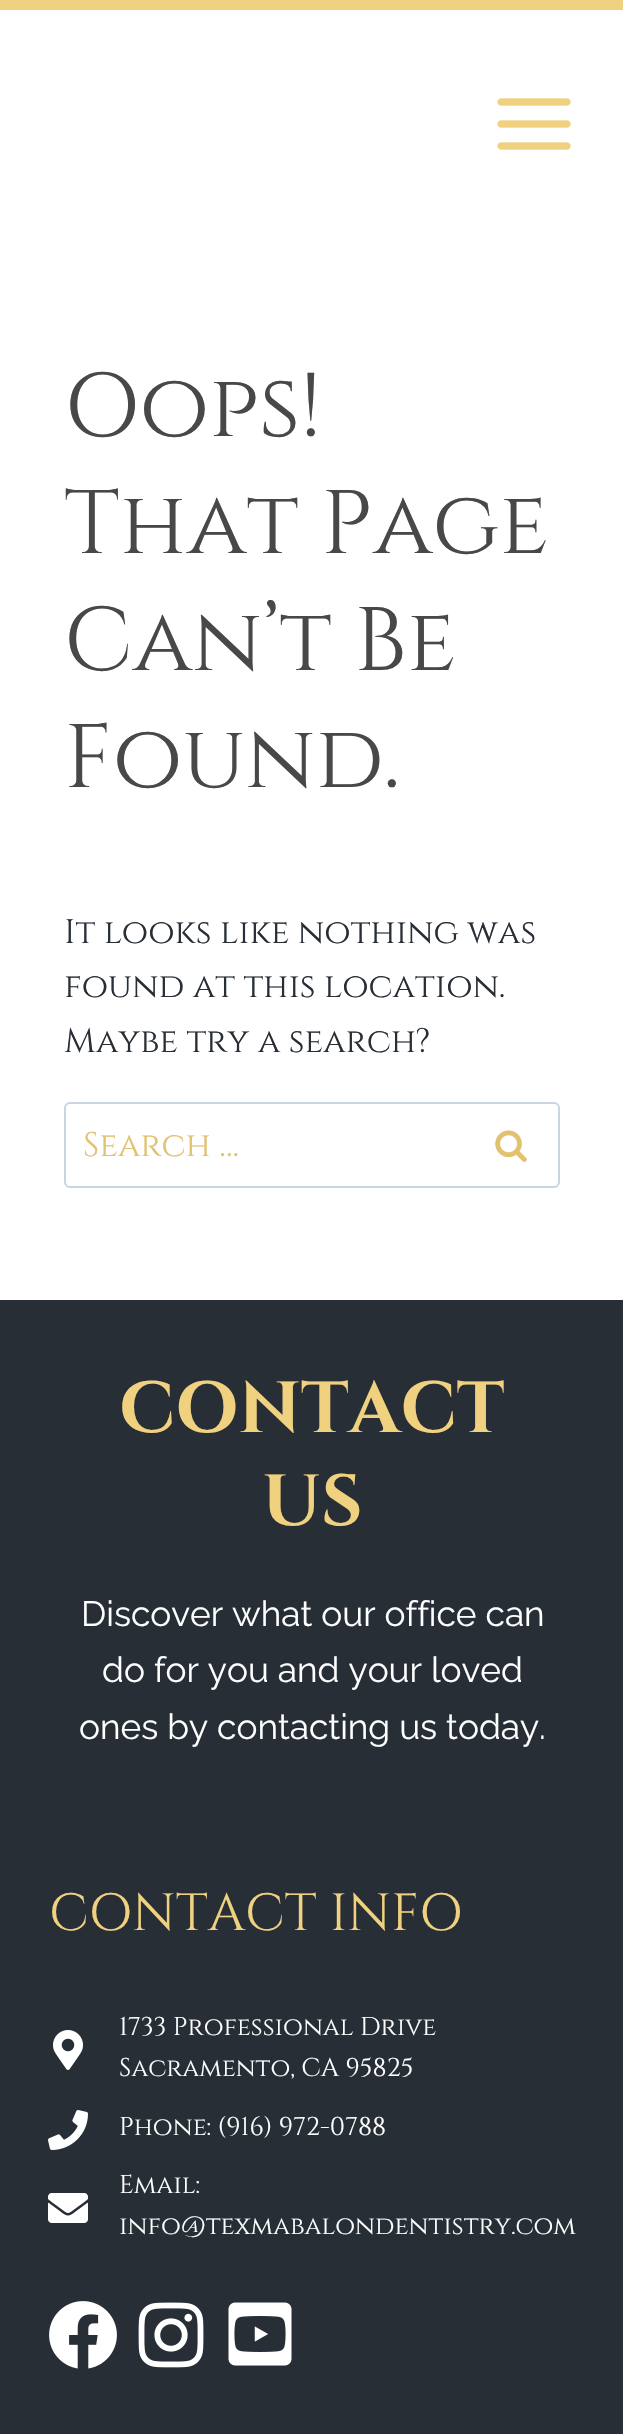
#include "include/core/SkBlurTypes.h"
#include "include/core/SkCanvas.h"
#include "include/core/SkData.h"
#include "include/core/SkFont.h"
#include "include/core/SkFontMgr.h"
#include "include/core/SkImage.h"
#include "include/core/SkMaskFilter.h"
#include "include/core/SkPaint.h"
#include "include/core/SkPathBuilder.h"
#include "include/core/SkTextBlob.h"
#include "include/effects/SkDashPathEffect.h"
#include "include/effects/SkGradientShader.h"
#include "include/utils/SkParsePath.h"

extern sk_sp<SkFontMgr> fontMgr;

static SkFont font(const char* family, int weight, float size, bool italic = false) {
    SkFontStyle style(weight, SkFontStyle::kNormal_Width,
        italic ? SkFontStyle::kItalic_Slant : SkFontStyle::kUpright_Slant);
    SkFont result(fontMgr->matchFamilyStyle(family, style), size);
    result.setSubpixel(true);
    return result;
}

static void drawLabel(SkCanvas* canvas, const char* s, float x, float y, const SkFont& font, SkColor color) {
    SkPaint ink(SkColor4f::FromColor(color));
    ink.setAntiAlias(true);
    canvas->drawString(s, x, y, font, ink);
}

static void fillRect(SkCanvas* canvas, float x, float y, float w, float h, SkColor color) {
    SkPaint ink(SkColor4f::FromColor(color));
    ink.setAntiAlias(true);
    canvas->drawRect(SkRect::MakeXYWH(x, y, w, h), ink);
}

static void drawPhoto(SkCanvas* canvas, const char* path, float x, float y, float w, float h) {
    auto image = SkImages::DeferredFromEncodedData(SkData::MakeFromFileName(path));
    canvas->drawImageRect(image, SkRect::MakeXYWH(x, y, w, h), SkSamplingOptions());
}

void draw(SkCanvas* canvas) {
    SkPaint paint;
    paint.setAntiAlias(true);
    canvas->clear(0xFFFFFFFF);
    fillRect(canvas, 0, 0, 623, 10, 0xFFEFD17F);
    drawPhoto(canvas, "assets/img1.png", 497, 98, 74, 52);
    SkFont font1 = font("Cinzel", 400, 90);
    drawLabel(canvas, "Oops!", 64, 436, font1, 0xFF484849);
    drawLabel(canvas, "That Page", 64, 553, font1, 0xFF484849);
    drawLabel(canvas, "Can’t Be", 64, 670, font1, 0xFF484849);
    drawLabel(canvas, "Found.", 64, 787, font1, 0xFF484849);
    SkFont font2 = font("Cinzel", 400, 34);
    drawLabel(canvas, "It looks like nothing was", 64, 943, font2, 0xFF272E36);
    drawLabel(canvas, "found at this location.", 64, 997, font2, 0xFF272E36);
    drawLabel(canvas, "Maybe try a search?", 64, 1052, font2, 0xFF272E36);
    paint.setStroke(true);
    paint.setStrokeWidth(2);
    paint.setColor(0xFFCBD5E0);
    canvas->drawRoundRect(SkRect::MakeXYWH(65, 1103, 494, 84), 5, 5, paint);
    drawLabel(canvas, "Search …", 83, 1156, font2, 0xFFE2C171);
    drawPhoto(canvas, "assets/img2.png", 495, 1130, 32, 32);
    fillRect(canvas, 0, 1300, 623, 1134, 0xFF272E36);
    SkFont font3 = font("Cinzel", 700, 72);
    drawLabel(canvas, "CONTACT", 119, 1432, font3, 0xFFEFD17F);
    drawLabel(canvas, "US", 262, 1525, font3, 0xFFEFD17F);
    SkFont font4 = font("Raleway", 100, 35.25f);
    drawLabel(canvas, "Discover what our office can", 81, 1626, font4, 0xFFFFFFFF);
    drawLabel(canvas, "do for you and your loved", 102, 1682, font4, 0xFFFFFFFF);
    drawLabel(canvas, "ones by contacting us today.", 79, 1739, font4, 0xFFFFFFFF);
    SkFont font5 = font("Cinzel", 400, 52);
    drawLabel(canvas, "CONTACT INFO", 49, 1930, font5, 0xFFEFD17F);
    drawPhoto(canvas, "assets/img3.png", 53, 2030, 30, 40);
    SkFont font6 = font("Cinzel", 400, 25.6f);
    drawLabel(canvas, "1733 Professional Drive", 119, 2035, font6, 0xFFFFFFFF);
    drawLabel(canvas, "Sacramento, CA 95825", 119, 2076, font6, 0xFFFFFFFF);
    drawPhoto(canvas, "assets/img4.png", 48, 2110, 40, 40);
    drawLabel(canvas, "Phone: (916) 972-0788", 119, 2135, font6, 0xFFFFFFFF);
    drawPhoto(canvas, "assets/img5.png", 48, 2193, 40, 30);
    drawLabel(canvas, "Email:", 119, 2193, font6, 0xFFFFFFFF);
    drawLabel(canvas, "info@texmabalondentistry.com", 119, 2234, font6, 0xFFFFFFFF);
    drawPhoto(canvas, "assets/img6.png", 49, 2301, 68, 68);
    drawPhoto(canvas, "assets/img7.png", 138, 2302, 66, 66);
    drawPhoto(canvas, "assets/img8.png", 228, 2302, 64, 64);
}
